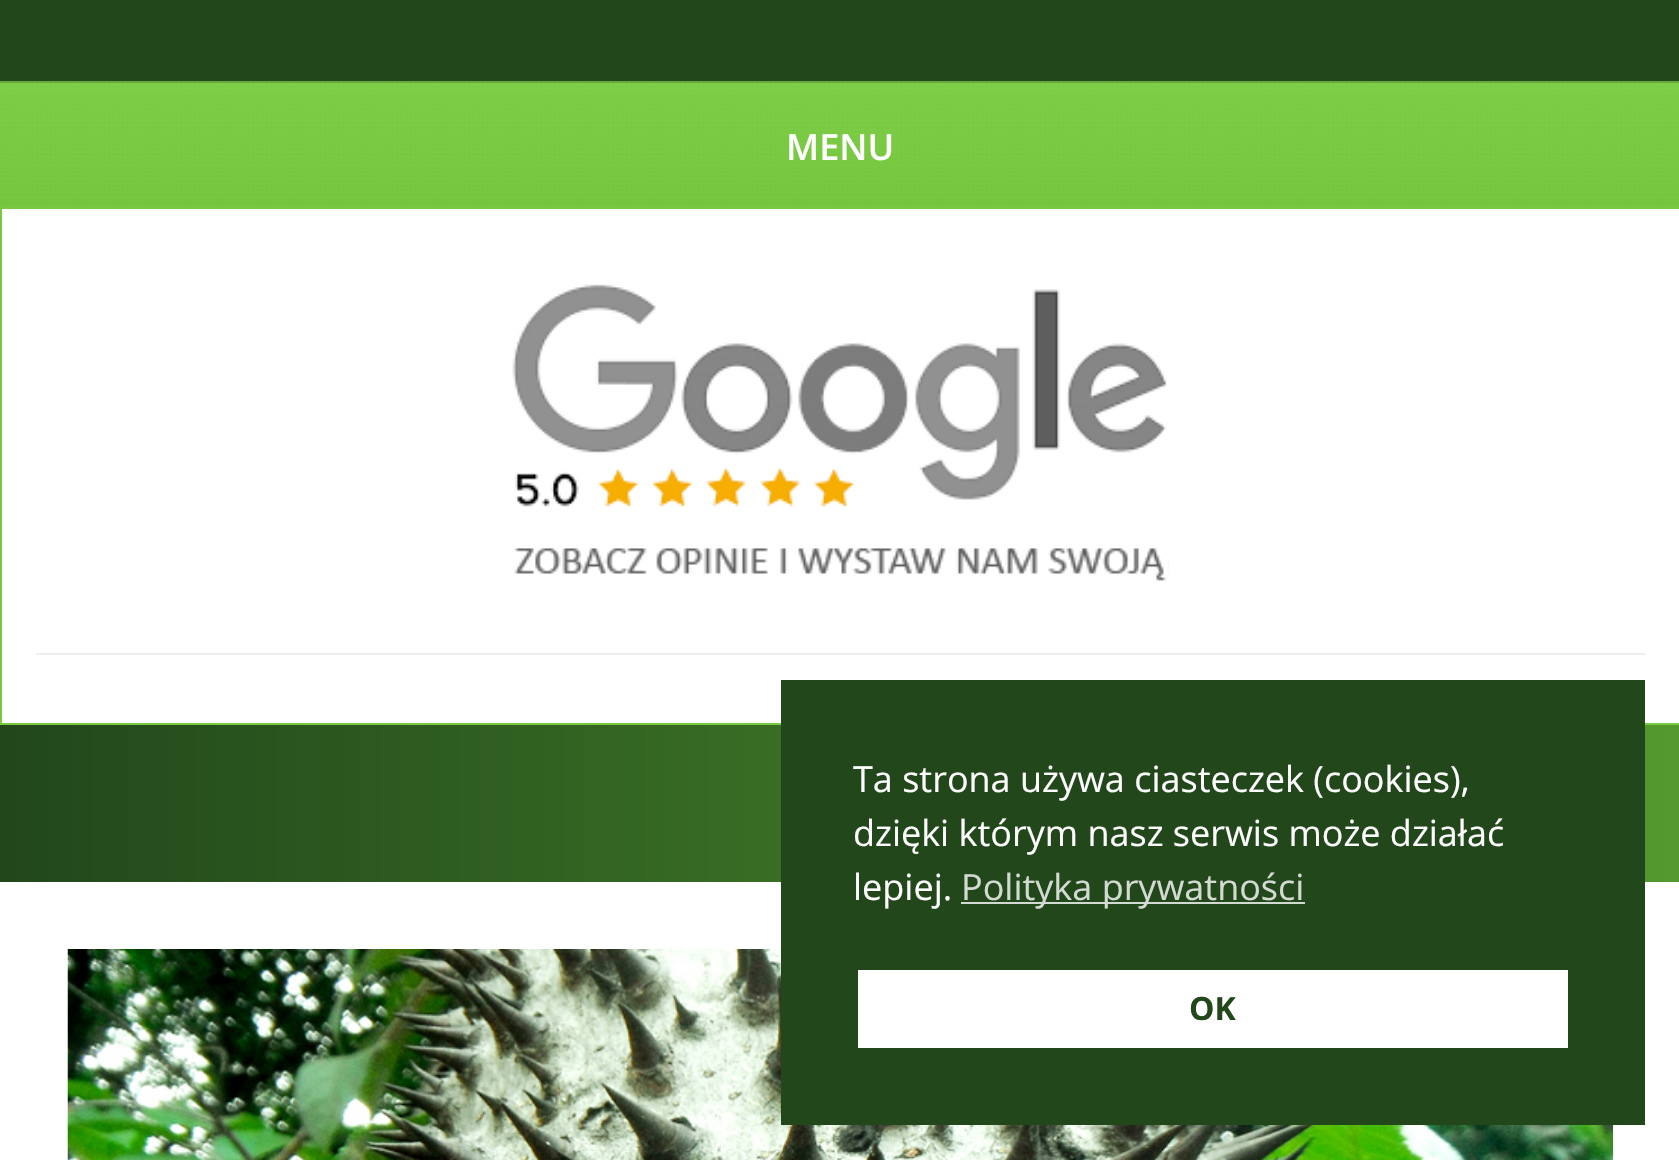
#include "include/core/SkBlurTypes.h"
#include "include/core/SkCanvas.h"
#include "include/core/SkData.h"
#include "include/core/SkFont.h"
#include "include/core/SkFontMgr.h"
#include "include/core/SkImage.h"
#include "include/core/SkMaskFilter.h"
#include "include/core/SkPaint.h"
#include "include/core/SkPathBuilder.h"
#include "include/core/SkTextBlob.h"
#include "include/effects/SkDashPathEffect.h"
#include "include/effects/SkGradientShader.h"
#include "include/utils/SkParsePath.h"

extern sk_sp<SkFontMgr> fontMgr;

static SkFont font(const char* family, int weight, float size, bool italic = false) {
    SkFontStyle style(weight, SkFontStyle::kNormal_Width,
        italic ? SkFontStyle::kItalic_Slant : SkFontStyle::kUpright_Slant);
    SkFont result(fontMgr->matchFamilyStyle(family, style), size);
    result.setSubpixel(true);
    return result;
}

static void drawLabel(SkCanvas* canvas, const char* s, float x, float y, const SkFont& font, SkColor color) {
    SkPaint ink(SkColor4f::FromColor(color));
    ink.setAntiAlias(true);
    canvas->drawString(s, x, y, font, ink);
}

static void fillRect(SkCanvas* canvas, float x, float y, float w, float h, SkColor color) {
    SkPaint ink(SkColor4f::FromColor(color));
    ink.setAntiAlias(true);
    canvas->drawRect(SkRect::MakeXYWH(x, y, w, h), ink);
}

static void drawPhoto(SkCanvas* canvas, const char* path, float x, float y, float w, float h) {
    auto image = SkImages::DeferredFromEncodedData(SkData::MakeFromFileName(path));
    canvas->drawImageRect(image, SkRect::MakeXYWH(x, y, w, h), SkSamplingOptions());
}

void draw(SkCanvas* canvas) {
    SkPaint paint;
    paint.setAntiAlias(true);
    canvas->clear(0xFF3B772B);
    drawPhoto(canvas, "assets/img1.png", 0, 81, 1679, 126);
    fillRect(canvas, 0, 0, 1679, 81, 0xFF21471B);
    fillRect(canvas, 0, 81, 1679, 126, 0xE681D742);
    {
        const SkColor colors[] = {0x08000000, 0x08FFFFFF};
        const float stops[] = {0, 1};
        const SkPoint ends[] = {{840, 83}, {840, -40}};
        paint.setShader(SkGradientShader::MakeLinear(ends, colors, stops, 2, SkTileMode::kClamp));
        paint.setAlpha(255);
    }
    canvas->drawRect(SkRect::MakeXYWH(0, 81, 1679, 2), paint);
    {
        const SkColor colors[] = {0x08000000, 0x08FFFFFF};
        const float stops[] = {0, 1};
        const SkPoint ends[] = {{840, 207}, {840, 83}};
        paint.setShader(SkGradientShader::MakeLinear(ends, colors, stops, 2, SkTileMode::kClamp));
        paint.setAlpha(255);
    }
    canvas->drawRect(SkRect::MakeXYWH(0, 83, 1679, 124), paint);
    fillRect(canvas, 0, 81, 1679, 2, 0x33383838);
    SkFont font1 = font("Open Sans", 600, 36);
    drawLabel(canvas, "MENU", 786, 160, font1, 0xFFFFFFFF);
    paint.setShader(nullptr);
    paint.setColor(0xFFFFFFFF);
    canvas->drawRect(SkRect::MakeXYWH(1, 208, 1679, 516), paint);
    paint.setStroke(true);
    paint.setStrokeWidth(2);
    paint.setColor(0xFF79CA40);
    canvas->drawRect(SkRect::MakeXYWH(1, 208, 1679, 516), paint);
    drawPhoto(canvas, "assets/img2.png", 512, 284, 658, 297);
    fillRect(canvas, 36, 653, 1609, 2, 0xFFEEEEEE);
    paint.setStroke(false);
    {
        const SkColor colors[] = {0xFF21471B, 0xFF54992F};
        const float stops[] = {0, 1};
        const SkPoint ends[] = {{0, 803}, {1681, 803}};
        paint.setShader(SkGradientShader::MakeLinear(ends, colors, stops, 2, SkTileMode::kClamp));
        paint.setAlpha(255);
    }
    canvas->drawRect(SkRect::MakeXYWH(0, 725, 1679, 157), paint);
    fillRect(canvas, 0, 882, 1679, 278, 0xFFFFFFFF);
    drawPhoto(canvas, "assets/img3.png", 67, 949, 1547, 211);
    fillRect(canvas, 781, 680, 864, 445, 0xFF21471B);
    SkFont font2 = font("Open Sans", 400, 36);
    drawLabel(canvas, "Ta strona używa ciasteczek (cookies),", 853, 792, font2, 0xFFFFFFFF);
    drawLabel(canvas, "dzięki którym nasz serwis może działać", 853, 846, font2, 0xFFFFFFFF);
    drawLabel(canvas, "lepiej.", 853, 900, font2, 0xFFFFFFFF);
    fillRect(canvas, 961, 902, 344, 2, 0xFFD3DAD1);
    drawLabel(canvas, "Polityka prywatności", 961, 900, font2, 0xFFD3DAD1);
    fillRect(canvas, 858, 970, 710, 78, 0xFFFFFFFF);
    SkFont font3 = font("Open Sans", 700, 32);
    drawLabel(canvas, "OK", 1189, 1020, font3, 0xFF21471B);
}
